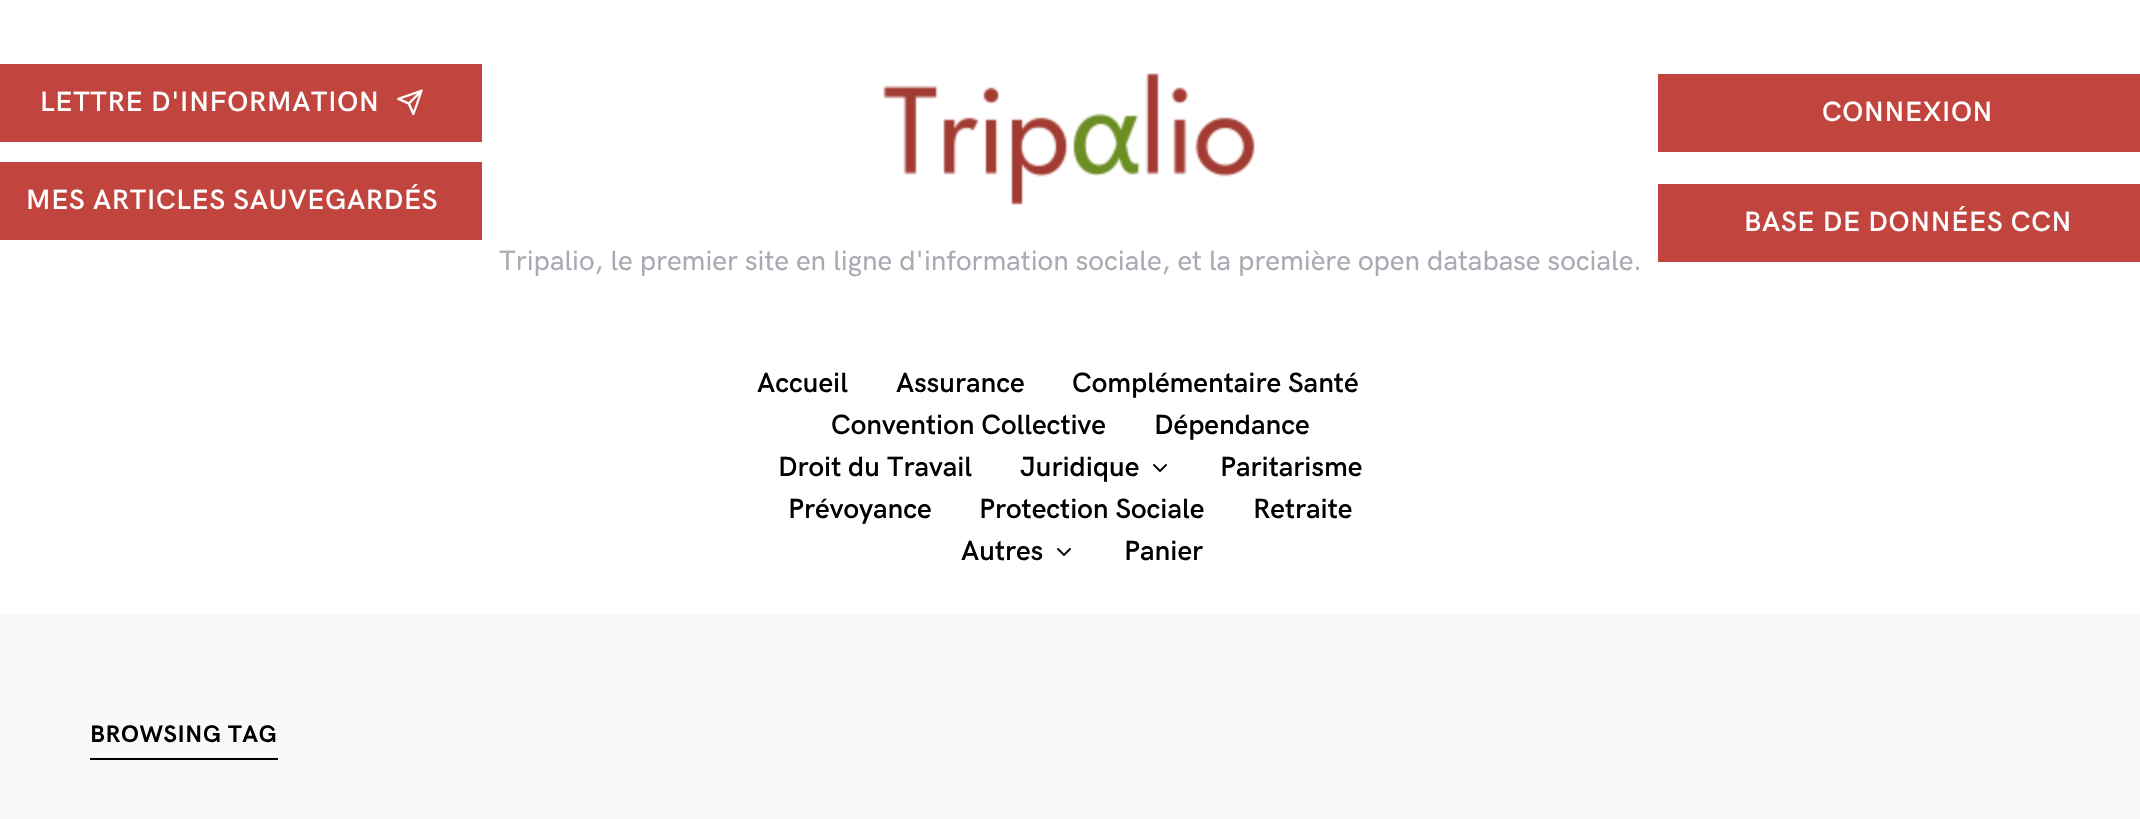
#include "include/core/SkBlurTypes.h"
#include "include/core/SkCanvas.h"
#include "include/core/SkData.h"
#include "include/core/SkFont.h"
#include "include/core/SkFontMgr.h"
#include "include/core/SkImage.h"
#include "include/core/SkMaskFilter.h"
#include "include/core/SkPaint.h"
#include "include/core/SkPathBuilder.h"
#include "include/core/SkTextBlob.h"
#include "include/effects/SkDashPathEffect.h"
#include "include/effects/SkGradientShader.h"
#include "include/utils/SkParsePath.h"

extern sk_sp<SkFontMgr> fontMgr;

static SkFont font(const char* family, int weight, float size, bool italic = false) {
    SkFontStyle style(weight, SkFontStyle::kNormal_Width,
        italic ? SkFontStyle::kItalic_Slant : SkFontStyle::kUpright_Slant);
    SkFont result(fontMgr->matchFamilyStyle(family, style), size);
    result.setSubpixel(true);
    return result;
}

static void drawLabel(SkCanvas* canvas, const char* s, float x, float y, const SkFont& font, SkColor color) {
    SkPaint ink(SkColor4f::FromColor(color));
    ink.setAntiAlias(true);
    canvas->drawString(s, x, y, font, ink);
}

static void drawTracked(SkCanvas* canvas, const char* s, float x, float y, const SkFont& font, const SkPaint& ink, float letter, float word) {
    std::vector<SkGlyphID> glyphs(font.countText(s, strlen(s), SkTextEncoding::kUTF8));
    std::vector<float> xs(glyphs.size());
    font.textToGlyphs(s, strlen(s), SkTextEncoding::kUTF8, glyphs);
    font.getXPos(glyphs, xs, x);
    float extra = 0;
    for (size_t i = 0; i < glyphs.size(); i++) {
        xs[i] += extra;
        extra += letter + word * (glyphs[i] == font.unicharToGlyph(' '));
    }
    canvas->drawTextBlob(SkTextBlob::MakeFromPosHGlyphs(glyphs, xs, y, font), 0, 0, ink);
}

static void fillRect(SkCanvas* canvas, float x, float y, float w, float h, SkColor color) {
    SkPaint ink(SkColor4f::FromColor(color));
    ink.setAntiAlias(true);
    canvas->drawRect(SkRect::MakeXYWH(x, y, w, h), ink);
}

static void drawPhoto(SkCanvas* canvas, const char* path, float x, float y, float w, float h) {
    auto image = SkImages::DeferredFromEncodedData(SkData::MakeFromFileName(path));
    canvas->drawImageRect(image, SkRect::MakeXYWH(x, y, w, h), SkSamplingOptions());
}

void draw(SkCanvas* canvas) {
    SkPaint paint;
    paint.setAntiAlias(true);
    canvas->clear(0xFFFFFFFF);
    fillRect(canvas, 0, 64, 482, 78, 0xFFC1443E);
    SkFont font1 = font("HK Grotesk", 600, 28);
    paint.setColor(0xFFFFFFFF);
    drawTracked(canvas, "LETTRE D'INFORMATION", 40, 111, font1, paint, 0.7f, 0);
    drawPhoto(canvas, "assets/img1.png", 397, 89, 26, 27);
    fillRect(canvas, 0, 162, 482, 78, 0xFFC1443E);
    drawTracked(canvas, "MES ARTICLES SAUVEGARDÉS", 26, 209, font1, paint, 0.7f, 0);
    fillRect(canvas, 1658, 74, 482, 78, 0xFFC1443E);
    drawTracked(canvas, "CONNEXION", 1822, 121, font1, paint, 0.7f, 0);
    fillRect(canvas, 1658, 184, 482, 78, 0xFFC1443E);
    drawTracked(canvas, "BASE DE DONNÉES CCN", 1744, 231, font1, paint, 0.7f, 0);
    drawPhoto(canvas, "assets/img2.png", 883, 73, 372, 132);
    SkFont font2 = font("HK Grotesk", 500, 28);
    drawLabel(canvas, "Tripalio, le premier site en ligne d'information sociale, et la première open database sociale.", 499, 270, font2, 0xFFA8AAB2);
    drawLabel(canvas, "Accueil", 757, 392, font1, 0xFF000000);
    drawLabel(canvas, "Assurance", 896, 392, font1, 0xFF000000);
    drawLabel(canvas, "Complémentaire Santé", 1072, 392, font1, 0xFF000000);
    drawLabel(canvas, "Convention Collective", 831, 434, font1, 0xFF000000);
    drawLabel(canvas, "Dépendance", 1154, 434, font1, 0xFF000000);
    drawLabel(canvas, "Droit du Travail", 778, 476, font1, 0xFF000000);
    drawLabel(canvas, "Juridique", 1020, 476, font1, 0xFF000000);
    drawPhoto(canvas, "assets/img3.png", 1153, 464, 14, 8);
    drawLabel(canvas, "Paritarisme", 1220, 476, font1, 0xFF000000);
    drawLabel(canvas, "Prévoyance", 788, 518, font1, 0xFF000000);
    drawLabel(canvas, "Protection Sociale", 979, 518, font1, 0xFF000000);
    drawLabel(canvas, "Retraite", 1253, 518, font1, 0xFF000000);
    drawLabel(canvas, "Autres", 961, 560, font1, 0xFF000000);
    drawPhoto(canvas, "assets/img3.png", 1057, 548, 14, 8);
    drawLabel(canvas, "Panier", 1124, 560, font1, 0xFF000000);
    fillRect(canvas, 0, 614, 2140, 205, 0xFFF8F9FA);
    SkFont font3 = font("HK Grotesk", 700, 24);
    paint.setColor(0xFF000000);
    drawTracked(canvas, "BROWSING TAG", 90, 742, font3, paint, 0.6f, 0);
    fillRect(canvas, 90, 758, 188, 2, 0xFF000000);
}
